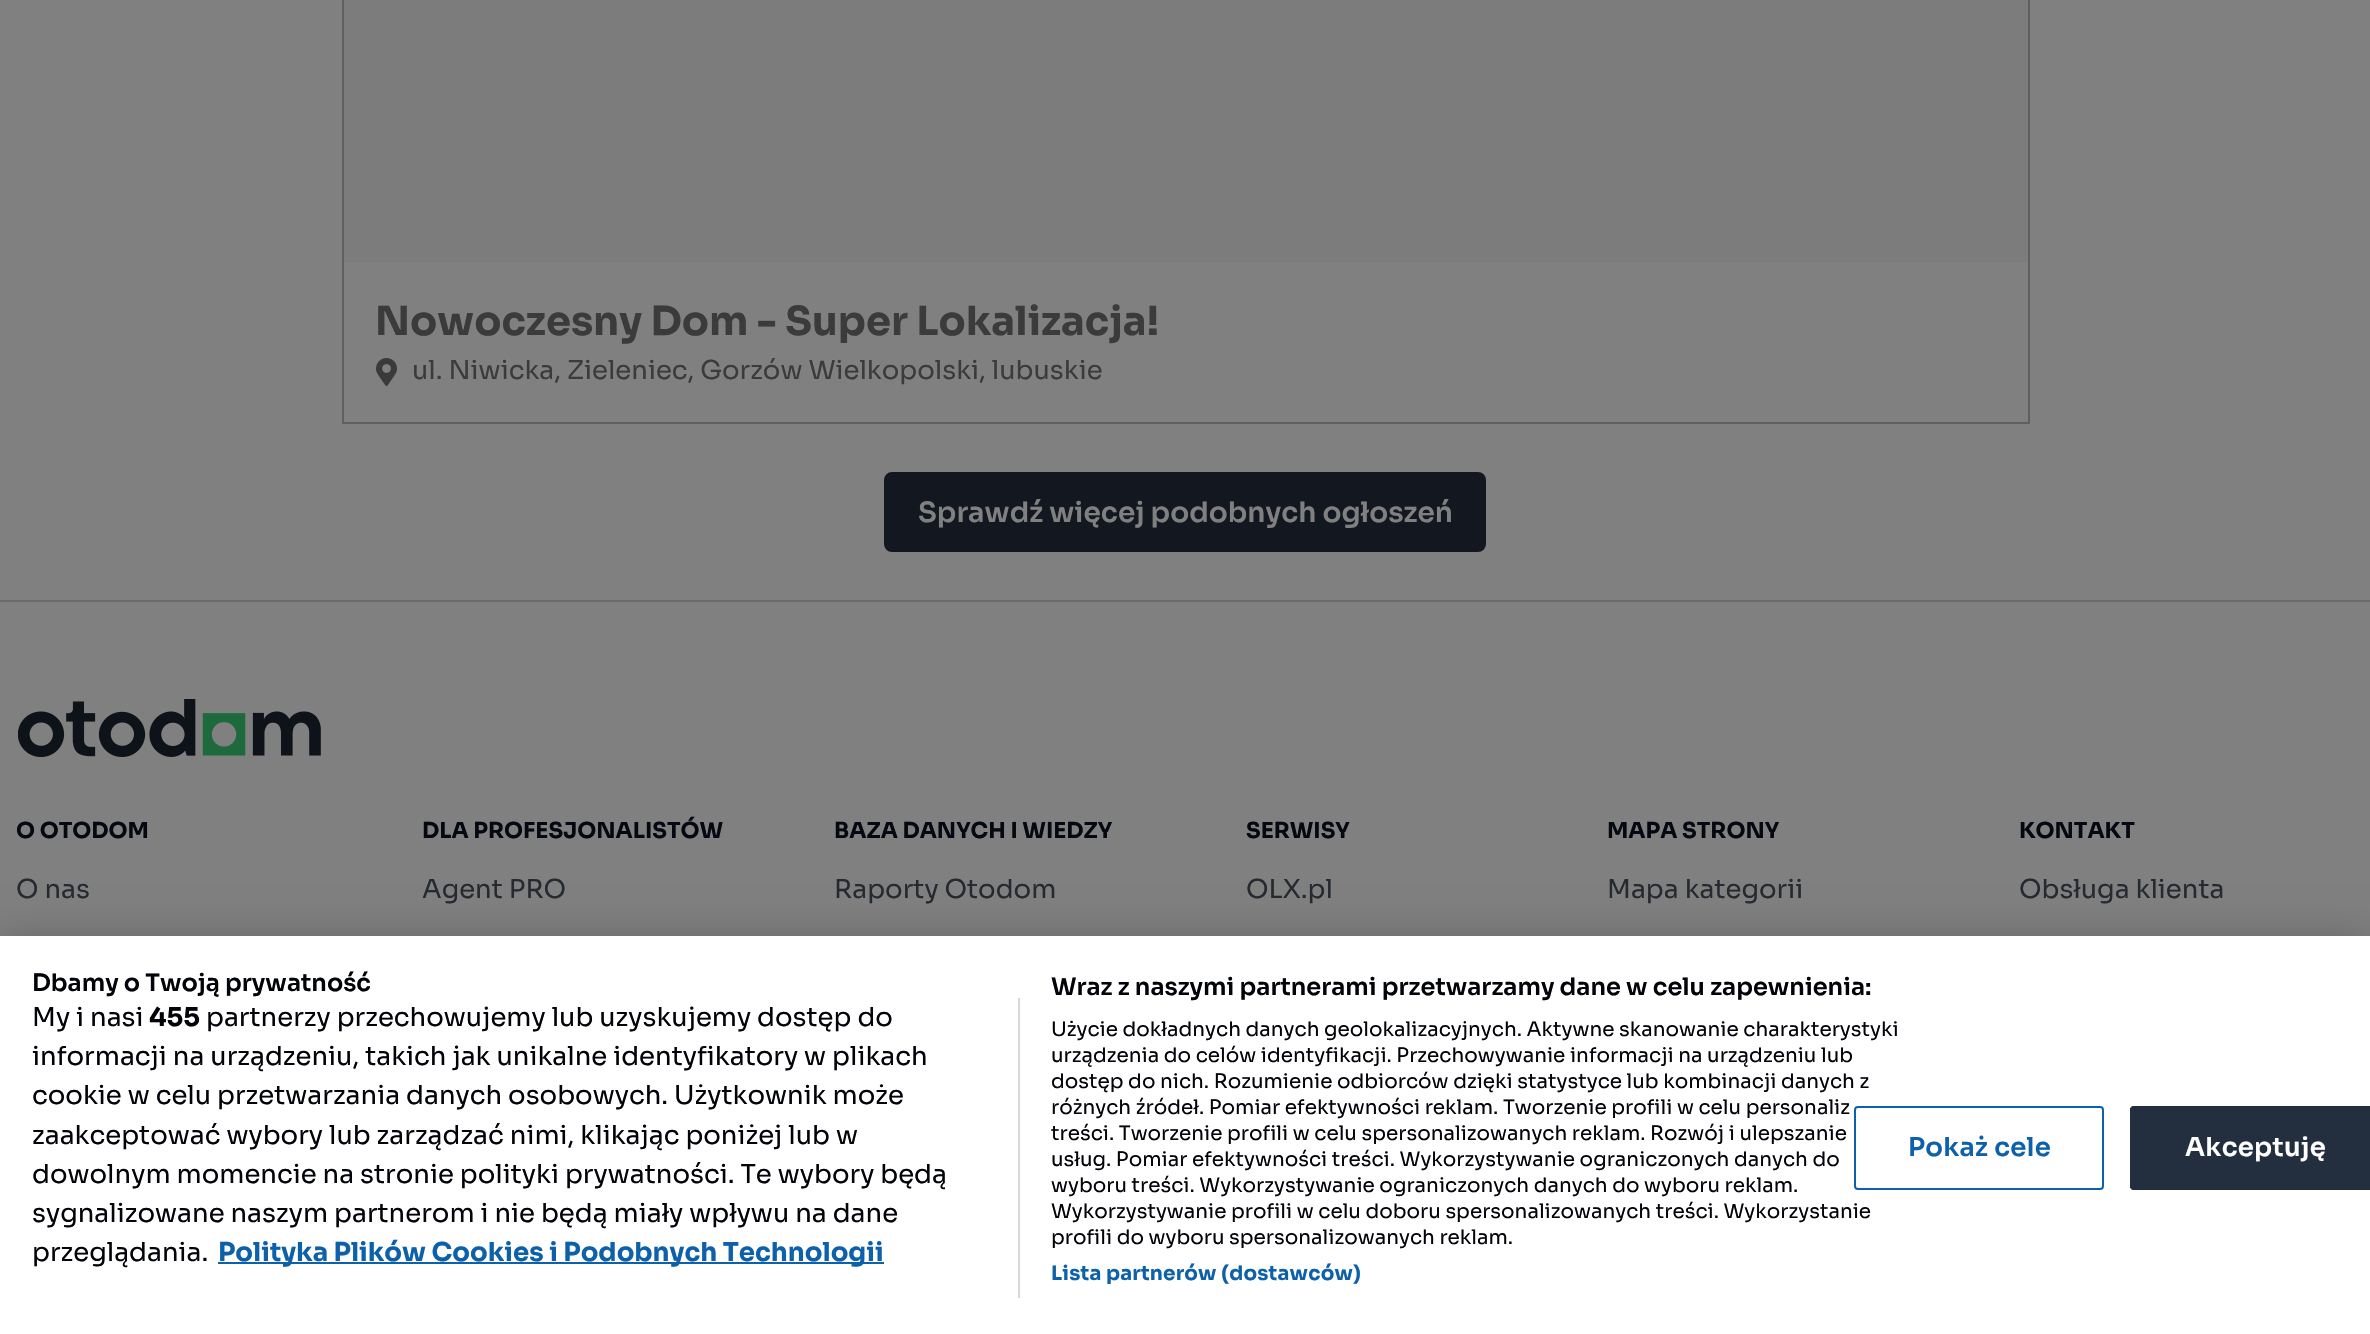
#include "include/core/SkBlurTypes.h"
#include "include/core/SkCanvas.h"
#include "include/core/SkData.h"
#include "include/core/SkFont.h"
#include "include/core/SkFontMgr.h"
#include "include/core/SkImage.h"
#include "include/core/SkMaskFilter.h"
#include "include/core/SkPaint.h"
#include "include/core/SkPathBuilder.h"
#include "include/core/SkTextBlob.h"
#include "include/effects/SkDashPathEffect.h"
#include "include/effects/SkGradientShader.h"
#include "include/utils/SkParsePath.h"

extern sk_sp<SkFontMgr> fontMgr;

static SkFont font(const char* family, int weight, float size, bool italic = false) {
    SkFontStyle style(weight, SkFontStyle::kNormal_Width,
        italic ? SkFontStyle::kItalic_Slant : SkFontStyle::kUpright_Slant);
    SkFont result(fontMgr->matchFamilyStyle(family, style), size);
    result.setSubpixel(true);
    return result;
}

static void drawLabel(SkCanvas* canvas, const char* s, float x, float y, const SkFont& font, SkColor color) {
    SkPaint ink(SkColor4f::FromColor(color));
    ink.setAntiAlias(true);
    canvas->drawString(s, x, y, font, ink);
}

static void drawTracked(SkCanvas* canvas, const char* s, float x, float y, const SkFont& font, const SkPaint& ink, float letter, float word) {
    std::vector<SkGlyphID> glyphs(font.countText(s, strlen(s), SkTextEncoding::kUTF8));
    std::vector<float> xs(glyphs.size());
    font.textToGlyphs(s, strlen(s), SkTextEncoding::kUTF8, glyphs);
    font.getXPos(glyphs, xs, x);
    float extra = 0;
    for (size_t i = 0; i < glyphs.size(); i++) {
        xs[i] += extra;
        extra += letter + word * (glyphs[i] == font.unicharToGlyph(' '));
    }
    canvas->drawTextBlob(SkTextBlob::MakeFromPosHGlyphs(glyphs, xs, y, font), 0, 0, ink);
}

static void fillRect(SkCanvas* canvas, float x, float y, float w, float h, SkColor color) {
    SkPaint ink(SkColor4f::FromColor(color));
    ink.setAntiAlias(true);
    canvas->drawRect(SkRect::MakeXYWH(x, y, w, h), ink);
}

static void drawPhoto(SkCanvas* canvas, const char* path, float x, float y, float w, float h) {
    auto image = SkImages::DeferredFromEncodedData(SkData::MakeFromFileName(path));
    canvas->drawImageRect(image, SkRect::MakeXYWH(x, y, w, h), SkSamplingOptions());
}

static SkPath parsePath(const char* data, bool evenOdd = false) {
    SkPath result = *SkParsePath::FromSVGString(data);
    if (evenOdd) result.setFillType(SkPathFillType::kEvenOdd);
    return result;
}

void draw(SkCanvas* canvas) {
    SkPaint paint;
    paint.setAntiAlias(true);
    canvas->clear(0xFF808080);
    paint.setStroke(true);
    paint.setStrokeWidth(2);
    paint.setColor(0xFF5F5F5F);
    canvas->drawRect(SkRect::MakeXYWH(343, -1, 1686, 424), paint);
    fillRect(canvas, 344, 0, 1684, 262, 0xFF7C7C7C);
    SkFont font1 = font("Sora", 700, 40);
    drawLabel(canvas, "Nowoczesny Dom - Super Lokalizacja!", 375, 335, font1, 0xFF3B3B3B);
    drawPhoto(canvas, "assets/img1.png", 376, 358, 21, 28);
    SkFont font2 = font("Sora", 400, 26);
    drawLabel(canvas, "ul. Niwicka, Zieleniec, Gorzów Wielkopolski, lubuskie", 412, 379, font2, 0xFF3B3B3B);
    paint.setStroke(false);
    paint.setColor(0xFF121720);
    canvas->drawRoundRect(SkRect::MakeXYWH(885, 473, 600, 78), 7, 7, paint);
    paint.setStroke(true);
    canvas->drawRoundRect(SkRect::MakeXYWH(885, 473, 600, 78), 7, 7, paint);
    SkFont font3 = font("Sora", 600, 28);
    drawLabel(canvas, "Sprawdź więcej podobnych ogłoszeń", 918, 522, font3, 0xFF808080);
    fillRect(canvas, 0, 600, 2370, 2, 0xFF6A6B6D);
    drawPhoto(canvas, "assets/img2.png", 18, 699, 303, 58);
    SkFont font4 = font("Sora", 700, 22);
    drawLabel(canvas, "O OTODOM", 16, 838, font4, 0xFF040911);
    drawLabel(canvas, "O nas", 16, 898, font2, 0xFF252930);
    drawLabel(canvas, "DLA PROFESJONALISTÓW", 422, 838, font4, 0xFF040911);
    drawLabel(canvas, "Agent PRO", 422, 898, font2, 0xFF252930);
    drawLabel(canvas, "BAZA DANYCH I WIEDZY", 834, 838, font4, 0xFF040911);
    drawLabel(canvas, "Raporty Otodom", 834, 898, font2, 0xFF252930);
    drawLabel(canvas, "SERWISY", 1246, 838, font4, 0xFF040911);
    drawLabel(canvas, "OLX.pl", 1246, 898, font2, 0xFF252930);
    drawLabel(canvas, "MAPA STRONY", 1607, 838, font4, 0xFF040911);
    drawLabel(canvas, "Mapa kategorii", 1607, 898, font2, 0xFF252930);
    drawLabel(canvas, "KONTAKT", 2019, 838, font4, 0xFF040911);
    drawLabel(canvas, "Obsługa klienta", 2019, 898, font2, 0xFF252930);
    paint.setStroke(false);
    paint.setColor(0x33000000);
    paint.setMaskFilter(SkMaskFilter::MakeBlur(kNormal_SkBlurStyle, 18));
    canvas->drawRect(SkRect::MakeXYWH(0, 936, 2370, 398), paint);
    paint.setMaskFilter(nullptr);
    fillRect(canvas, 0, 936, 2370, 398, 0xFFFFFFFF);
    SkFont font5 = font("Sora", 600, 24);
    drawLabel(canvas, "Dbamy o Twoją prywatność", 32, 991, font5, 0xFF020309);
    drawLabel(canvas, "Wraz z naszymi partnerami przetwarzamy dane w celu zapewnienia:", 1051, 995, font5, 0xFF020309);
    SkFont font6 = font("Sora", 400, 20);
    drawLabel(canvas, "Użycie dokładnych danych geolokalizacyjnych. Aktywne skanowanie charakterystyki", 1051, 1036, font6, 0xFF020309);
    drawLabel(canvas, "urządzenia do celów identyfikacji. Przechowywanie informacji na urządzeniu lub", 1051, 1062, font6, 0xFF020309);
    drawLabel(canvas, "dostęp do nich. Rozumienie odbiorców dzięki statystyce lub kombinacji danych z", 1051, 1088, font6, 0xFF020309);
    drawLabel(canvas, "różnych źródeł. Pomiar efektywności reklam. Tworzenie profili w celu personaliz", 1051, 1114, font6, 0xFF020309);
    drawLabel(canvas, "treści. Tworzenie profili w celu spersonalizowanych reklam. Rozwój i ulepszanie", 1051, 1140, font6, 0xFF020309);
    drawLabel(canvas, "usług. Pomiar efektywności treści. Wykorzystywanie ograniczonych danych do", 1051, 1166, font6, 0xFF020309);
    drawLabel(canvas, "wyboru treści. Wykorzystywanie ograniczonych danych do wyboru reklam.", 1051, 1192, font6, 0xFF020309);
    drawLabel(canvas, "Wykorzystywanie profili w celu doboru spersonalizowanych treści. Wykorzystanie", 1051, 1218, font6, 0xFF020309);
    drawLabel(canvas, "profili do wyboru spersonalizowanych reklam.", 1051, 1244, font6, 0xFF020309);
    SkFont font7 = font("Sora", 700, 20);
    paint.setColor(0xFF0D61AB);
    drawTracked(canvas, "Lista partnerów (dostawców)", 1051, 1280, font7, paint, 0.2f, 0);
    fillRect(canvas, 1018, 998, 2, 300, 0xFFD8D8D8);
    drawLabel(canvas, "My i nasi", 32, 1026, font2, 0xFF020309);
    SkFont font8 = font("Sora", 700, 26);
    drawLabel(canvas, "455", 149, 1026, font8, 0xFF020309);
    drawLabel(canvas, "partnerzy przechowujemy lub uzyskujemy dostęp do", 206, 1026, font2, 0xFF020309);
    drawLabel(canvas, "informacji na urządzeniu, takich jak unikalne identyfikatory w plikach", 32, 1065, font2, 0xFF020309);
    drawLabel(canvas, "cookie w celu przetwarzania danych osobowych. Użytkownik może", 32, 1104, font2, 0xFF020309);
    drawLabel(canvas, "zaakceptować wybory lub zarządzać nimi, klikając poniżej lub w", 32, 1144, font2, 0xFF020309);
    drawLabel(canvas, "dowolnym momencie na stronie polityki prywatności. Te wybory będą", 32, 1183, font2, 0xFF020309);
    drawLabel(canvas, "sygnalizowane naszym partnerom i nie będą miały wpływu na dane", 32, 1222, font2, 0xFF020309);
    drawLabel(canvas, "przeglądania.", 32, 1261, font2, 0xFF020309);
    fillRect(canvas, 218, 1262, 666, 2, 0xFF0D61AB);
    drawLabel(canvas, "Polityka Plików Cookies i Podobnych Technologii", 218, 1261, font8, 0xFF0D61AB);
    paint.setStroke(true);
    canvas->drawRoundRect(SkRect::MakeXYWH(1855, 1107, 248, 82), 3, 3, paint);
    SkFont font9 = font("Sora", 600, 26);
    paint.setStroke(false);
    drawTracked(canvas, "Pokaż cele", 1908, 1156, font9, paint, 0.25f, 0);
    paint.setColor(0xFF232E3F);
    canvas->drawPath(parsePath("M2134 1106H2370V1190H2134C2132 1190 2130 1188 2130 1186V1110C2130 1108 2132 1106 2134 1106Z"), paint);
    paint.setStroke(true);
    canvas->drawRoundRect(SkRect::MakeXYWH(2131, 1107, 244, 82), 3, 3, paint);
    paint.setStroke(false);
    paint.setColor(0xFFFFFFFF);
    drawTracked(canvas, "Akceptuję", 2185, 1156, font9, paint, 0.25f, 0);
}
